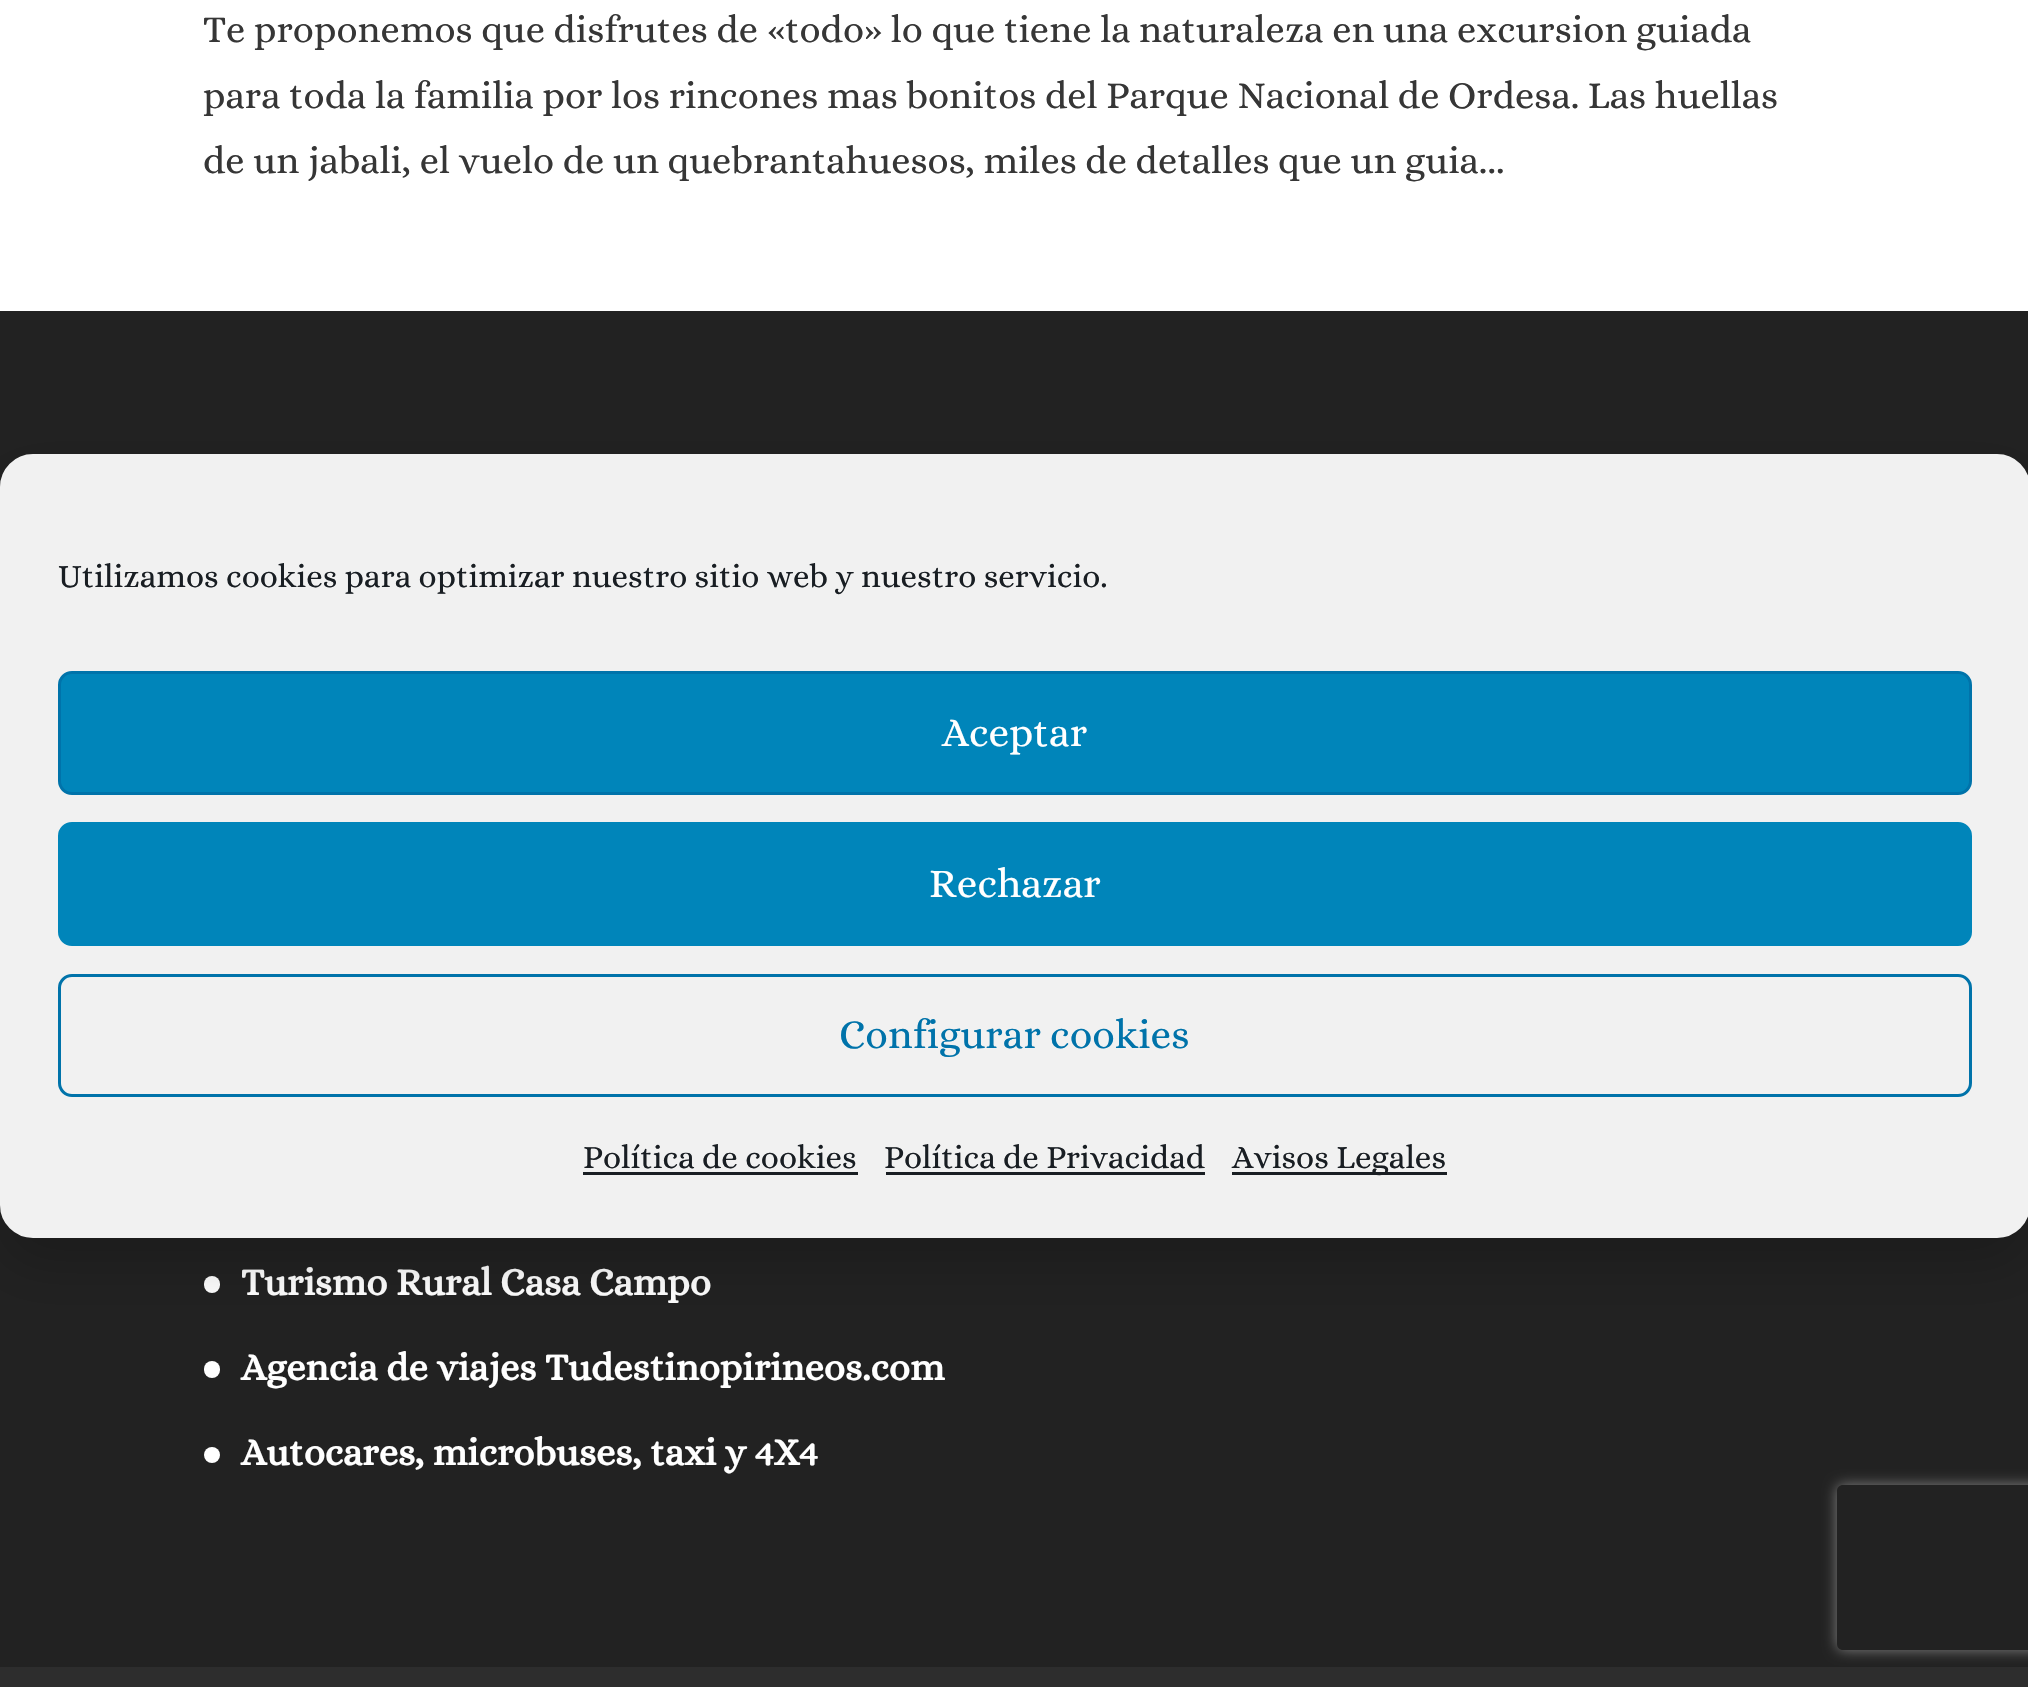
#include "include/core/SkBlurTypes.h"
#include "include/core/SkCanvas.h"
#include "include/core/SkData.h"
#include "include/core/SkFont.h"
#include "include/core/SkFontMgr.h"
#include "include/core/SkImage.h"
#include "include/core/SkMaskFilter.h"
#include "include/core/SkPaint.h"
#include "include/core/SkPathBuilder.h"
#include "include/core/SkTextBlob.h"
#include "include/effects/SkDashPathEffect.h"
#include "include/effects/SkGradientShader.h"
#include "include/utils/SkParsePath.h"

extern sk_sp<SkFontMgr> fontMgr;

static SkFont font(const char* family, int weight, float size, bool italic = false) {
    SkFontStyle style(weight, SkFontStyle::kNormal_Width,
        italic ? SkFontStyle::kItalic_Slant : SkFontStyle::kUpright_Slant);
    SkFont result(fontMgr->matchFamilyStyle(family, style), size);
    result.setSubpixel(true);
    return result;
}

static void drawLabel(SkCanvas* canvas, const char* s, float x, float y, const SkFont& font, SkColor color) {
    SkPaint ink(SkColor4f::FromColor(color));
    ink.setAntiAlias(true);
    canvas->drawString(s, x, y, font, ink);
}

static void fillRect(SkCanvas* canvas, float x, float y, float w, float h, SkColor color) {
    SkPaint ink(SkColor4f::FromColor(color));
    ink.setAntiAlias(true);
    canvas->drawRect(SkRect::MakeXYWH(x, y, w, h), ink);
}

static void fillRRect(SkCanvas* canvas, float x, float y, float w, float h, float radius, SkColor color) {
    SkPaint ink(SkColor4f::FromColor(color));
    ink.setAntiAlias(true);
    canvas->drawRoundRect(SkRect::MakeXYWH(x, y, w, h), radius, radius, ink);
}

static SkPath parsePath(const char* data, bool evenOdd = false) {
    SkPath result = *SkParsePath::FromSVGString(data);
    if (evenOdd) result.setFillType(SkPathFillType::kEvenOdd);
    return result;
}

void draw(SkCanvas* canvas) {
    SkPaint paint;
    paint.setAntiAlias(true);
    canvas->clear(0xFFFFFFFF);
    SkFont font1 = font("Alice", 400, 38.5f);
    drawLabel(canvas, "Te proponemos que disfrutes de «todo» lo que tiene la naturaleza en una excursion guiada", 203, 42, font1, 0xFF363636);
    drawLabel(canvas, "para toda la familia por los rincones mas bonitos del Parque Nacional de Ordesa. Las huellas", 203, 108, font1, 0xFF363636);
    drawLabel(canvas, "de un jabali, el vuelo de un quebrantahuesos, miles de detalles que un guia...", 203, 173, font1, 0xFF363636);
    fillRect(canvas, 0, 311, 2028, 1356, 0xFF222222);
    fillRRect(canvas, 204, 1276, 16, 17, 8, 0xFFFFFFFF);
    SkFont font2 = font("Alice", 700, 38.5f);
    drawLabel(canvas, "Turismo Rural Casa Campo", 241, 1295, font2, 0xFFFFFFFF);
    fillRRect(canvas, 204, 1361, 16, 17, 8, 0xFFFFFFFF);
    drawLabel(canvas, "Agencia de viajes Tudestinopirineos.com", 241, 1380, font2, 0xFFFFFFFF);
    paint.setColor(0xFFFFFFFF);
    canvas->drawCircle(212, 1455, 8, paint);
    drawLabel(canvas, "Autocares, microbuses, taxi y 4X4", 241, 1465, font2, 0xFFFFFFFF);
    fillRect(canvas, 0, 1667, 2028, 20, 0xFF2D2D2D);
    paint.setColor(0x30000000);
    paint.setMaskFilter(SkMaskFilter::MakeBlur(kNormal_SkBlurStyle, 27.5f));
    canvas->drawRoundRect(SkRect::MakeXYWH(0, 481, 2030, 784), 33, 33, paint);
    paint.setMaskFilter(nullptr);
    paint.setColor(0xFFF1F1F1);
    canvas->drawRoundRect(SkRect::MakeXYWH(1.5f, 455.5f, 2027, 781), 31.5f, 31.5f, paint);
    paint.setStroke(true);
    paint.setStrokeWidth(3);
    canvas->drawRoundRect(SkRect::MakeXYWH(1.5f, 455.5f, 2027, 781), 31.5f, 31.5f, paint);
    SkFont font3 = font("Alice", 400, 33);
    drawLabel(canvas, "Utilizamos cookies para optimizar nuestro sitio web y nuestro servicio.", 58, 587, font3, 0xFF191E23);
    paint.setStroke(false);
    paint.setColor(0xFF0085BA);
    canvas->drawRoundRect(SkRect::MakeXYWH(59.5f, 672.5f, 1911, 121), 12.5f, 12.5f, paint);
    paint.setStroke(true);
    paint.setColor(0xFF0073AA);
    canvas->drawRoundRect(SkRect::MakeXYWH(59.5f, 672.5f, 1911, 121), 12.5f, 12.5f, paint);
    SkFont font4 = font("Alice", 400, 41.25f);
    drawLabel(canvas, "Aceptar", 942, 746, font4, 0xFFFFFFFF);
    paint.setStroke(false);
    paint.setColor(0xFF0085BA);
    canvas->drawRoundRect(SkRect::MakeXYWH(59.5f, 823.5f, 1911, 121), 12.5f, 12.5f, paint);
    paint.setStroke(true);
    canvas->drawRoundRect(SkRect::MakeXYWH(59.5f, 823.5f, 1911, 121), 12.5f, 12.5f, paint);
    drawLabel(canvas, "Rechazar", 929, 897, font4, 0xFFFFFFFF);
    paint.setColor(0xFF0073AA);
    canvas->drawRoundRect(SkRect::MakeXYWH(59.5f, 975.5f, 1911, 120), 12.5f, 12.5f, paint);
    drawLabel(canvas, "Configurar cookies", 839, 1048, font4, 0xFF0073AA);
    drawLabel(canvas, "Política de cookies", 583, 1168, font3, 0xFF191E23);
    fillRect(canvas, 583, 1172, 275, 3, 0xFF191E23);
    drawLabel(canvas, "Política de Privacidad", 884, 1168, font3, 0xFF191E23);
    fillRect(canvas, 886, 1172, 319, 3, 0xFF191E23);
    fillRect(canvas, 1232, 1172, 215, 3, 0xFF191E23);
    drawLabel(canvas, "Avisos Legales", 1232, 1168, font3, 0xFF191E23);
    canvas->save();
    canvas->clipPath(parsePath("M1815 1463H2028V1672H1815ZM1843 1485H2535C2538.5 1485 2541 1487.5 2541 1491V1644C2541 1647.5 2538.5 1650 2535 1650H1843C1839.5 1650 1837 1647.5 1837 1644V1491C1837 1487.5 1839.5 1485 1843 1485Z", true), true);
    paint.setStroke(false);
    paint.setColor(0xFF808080);
    paint.setMaskFilter(SkMaskFilter::MakeBlur(kNormal_SkBlurStyle, 7));
    canvas->drawRoundRect(SkRect::MakeXYWH(1837, 1485, 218, 165), 6, 6, paint);
    paint.setMaskFilter(nullptr);
    canvas->restore();
}
